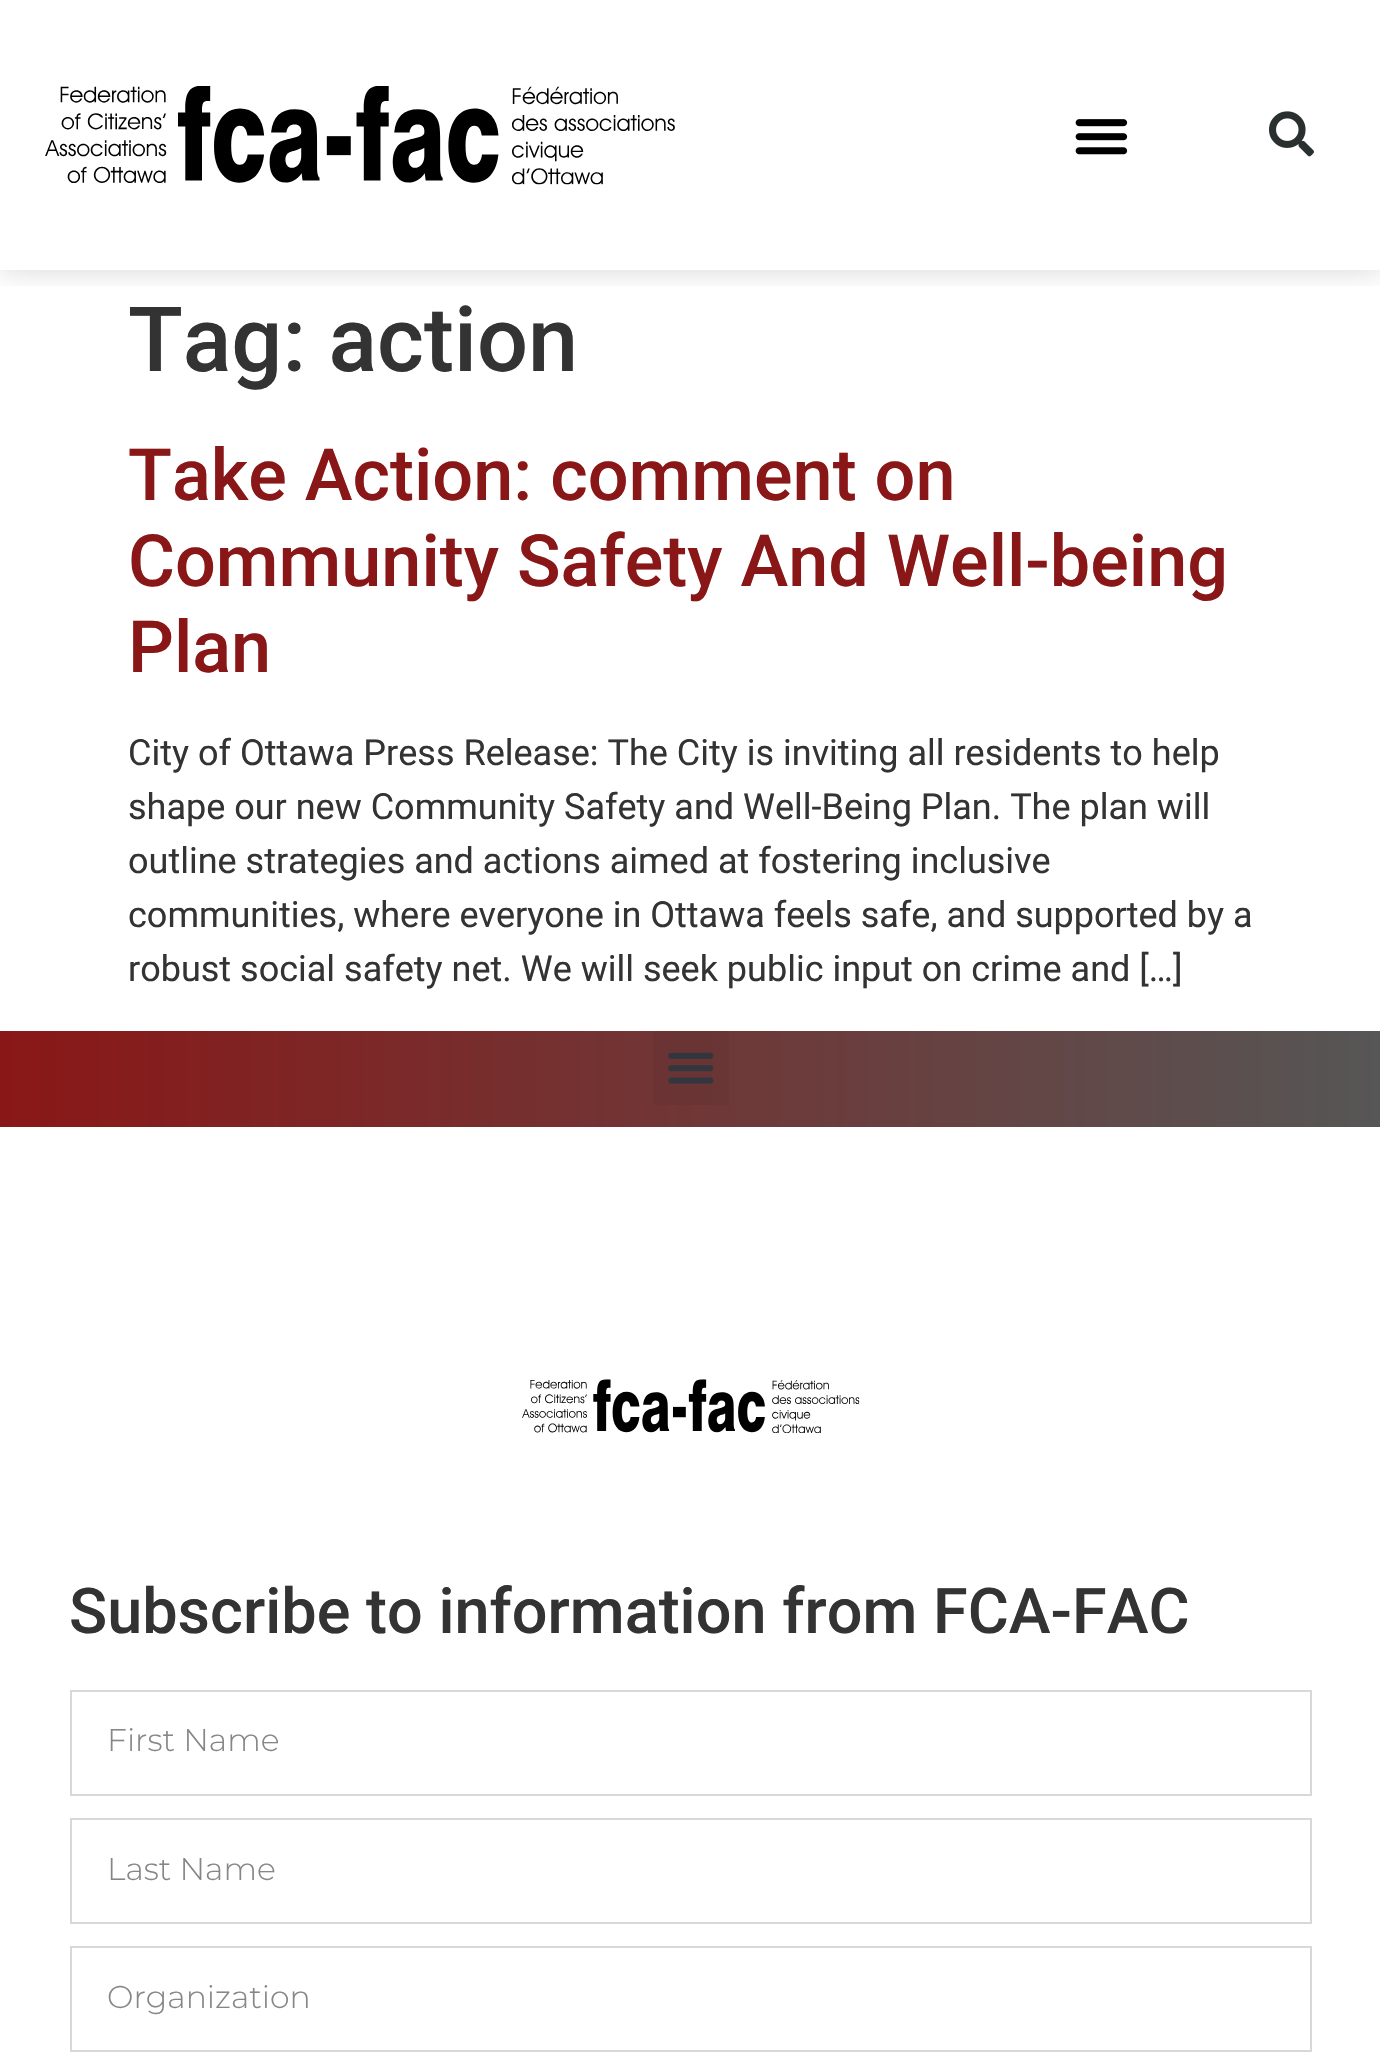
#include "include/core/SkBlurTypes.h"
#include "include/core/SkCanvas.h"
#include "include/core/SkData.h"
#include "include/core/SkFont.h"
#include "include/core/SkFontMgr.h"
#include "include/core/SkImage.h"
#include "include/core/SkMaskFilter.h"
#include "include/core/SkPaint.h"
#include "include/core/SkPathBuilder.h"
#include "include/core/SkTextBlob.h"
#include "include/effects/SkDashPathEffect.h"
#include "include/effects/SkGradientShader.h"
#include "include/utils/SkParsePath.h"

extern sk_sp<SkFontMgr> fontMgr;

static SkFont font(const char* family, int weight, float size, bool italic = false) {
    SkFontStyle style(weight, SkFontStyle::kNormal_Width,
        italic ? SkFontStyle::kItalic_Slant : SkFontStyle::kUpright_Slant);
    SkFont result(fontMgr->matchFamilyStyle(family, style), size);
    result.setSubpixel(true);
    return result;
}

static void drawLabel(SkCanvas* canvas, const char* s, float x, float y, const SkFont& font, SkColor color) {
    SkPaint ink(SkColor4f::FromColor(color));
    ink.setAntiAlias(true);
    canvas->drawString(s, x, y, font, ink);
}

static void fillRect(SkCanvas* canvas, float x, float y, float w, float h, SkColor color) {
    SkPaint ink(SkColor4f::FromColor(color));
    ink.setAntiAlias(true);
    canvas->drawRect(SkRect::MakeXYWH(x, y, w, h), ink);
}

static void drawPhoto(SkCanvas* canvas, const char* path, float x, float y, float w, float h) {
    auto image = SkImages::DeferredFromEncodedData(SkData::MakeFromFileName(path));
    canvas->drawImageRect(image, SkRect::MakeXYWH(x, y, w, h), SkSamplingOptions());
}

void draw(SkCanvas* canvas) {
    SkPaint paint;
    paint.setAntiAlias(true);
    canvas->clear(0xFFFFFFFF);
    canvas->save();
    canvas->clipRect(SkRect::MakeXYWH(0, 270, 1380, 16));
    paint.setColor(0x33000000);
    paint.setMaskFilter(SkMaskFilter::MakeBlur(kNormal_SkBlurStyle, 16));
    canvas->drawRect(SkRect::MakeXYWH(0, -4, 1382, 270), paint);
    paint.setMaskFilter(nullptr);
    canvas->restore();
    drawPhoto(canvas, "assets/img1.png", 45, 86, 630, 99);
    drawPhoto(canvas, "assets/img2.png", 1075, 119, 53, 36);
    drawPhoto(canvas, "assets/img3.png", 1269, 111, 45, 46);
    SkFont font1 = font("Roboto", 500, 90);
    drawLabel(canvas, "Tag: action", 128, 371, font1, 0xFF333333);
    SkFont font2 = font("Roboto", 500, 72);
    drawLabel(canvas, "Take Action: comment on", 128, 500, font2, 0xFF8A1717);
    drawLabel(canvas, "Community Safety And Well-being", 128, 586, font2, 0xFF8A1717);
    drawLabel(canvas, "Plan", 128, 672, font2, 0xFF8A1717);
    SkFont font3 = font("Roboto", 400, 36);
    drawLabel(canvas, "City of Ottawa Press Release: The City is inviting all residents to help", 128, 765, font3, 0xFF333333);
    drawLabel(canvas, "shape our new Community Safety and Well-Being Plan. The plan will", 128, 819, font3, 0xFF333333);
    drawLabel(canvas, "outline strategies and actions aimed at fostering inclusive", 128, 873, font3, 0xFF333333);
    drawLabel(canvas, "communities, where everyone in Ottawa feels safe, and supported by a", 128, 927, font3, 0xFF333333);
    drawLabel(canvas, "robust social safety net. We will seek public input on crime and […]", 128, 981, font3, 0xFF333333);
    {
        const SkColor colors[] = {0xFF8A1717, 0xFF565656};
        const float stops[] = {0, 1};
        const SkPoint ends[] = {{0, 1079}, {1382, 1079}};
        paint.setShader(SkGradientShader::MakeLinear(ends, colors, stops, 2, SkTileMode::kClamp));
        paint.setAlpha(255);
    }
    canvas->drawRect(SkRect::MakeXYWH(0, 1031, 1380, 96), paint);
    fillRect(canvas, 653, 1031, 76, 74, 0x0D000000);
    drawPhoto(canvas, "assets/img4.png", 668, 1052, 46, 32);
    drawPhoto(canvas, "assets/img5.png", 522, 1379, 338, 54);
    SkFont font4 = font("Roboto", 500, 63);
    drawLabel(canvas, "Subscribe to information from FCA-FAC", 69, 1633, font4, 0xFF333333);
    paint.setStroke(true);
    paint.setStrokeWidth(2);
    paint.setShader(nullptr);
    paint.setColor(0xFFD8D8D8);
    canvas->drawRect(SkRect::MakeXYWH(71, 1691, 1240, 104), paint);
    SkFont font5 = font("Montserrat", 300, 31.5f);
    drawLabel(canvas, "First Name", 107, 1751, font5, 0xFF868686);
    canvas->drawRect(SkRect::MakeXYWH(71, 1819, 1240, 104), paint);
    drawLabel(canvas, "Last Name", 107, 1880, font5, 0xFF868686);
    canvas->drawRect(SkRect::MakeXYWH(71, 1947, 1240, 104), paint);
    drawLabel(canvas, "Organization", 107, 2008, font5, 0xFF868686);
}
